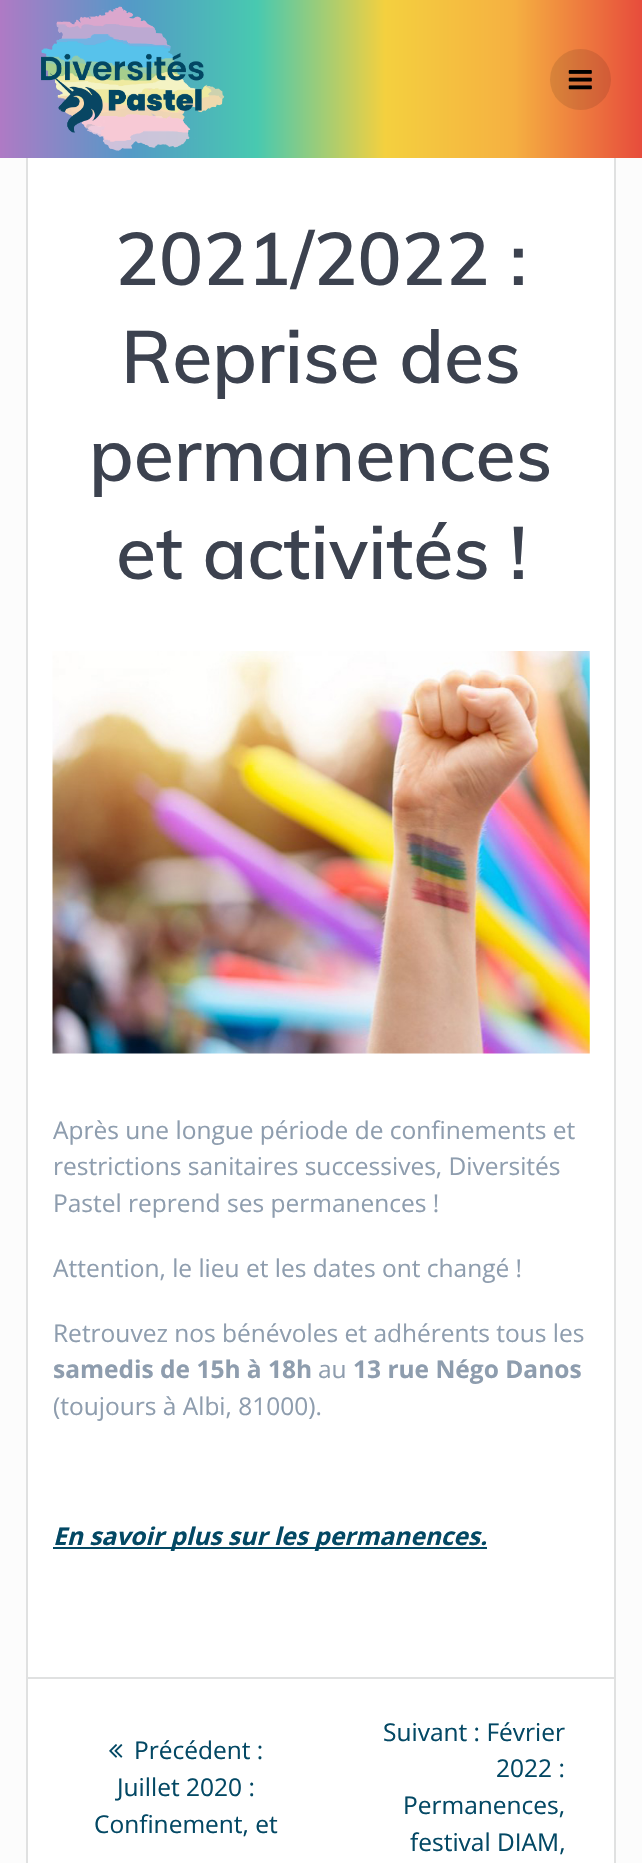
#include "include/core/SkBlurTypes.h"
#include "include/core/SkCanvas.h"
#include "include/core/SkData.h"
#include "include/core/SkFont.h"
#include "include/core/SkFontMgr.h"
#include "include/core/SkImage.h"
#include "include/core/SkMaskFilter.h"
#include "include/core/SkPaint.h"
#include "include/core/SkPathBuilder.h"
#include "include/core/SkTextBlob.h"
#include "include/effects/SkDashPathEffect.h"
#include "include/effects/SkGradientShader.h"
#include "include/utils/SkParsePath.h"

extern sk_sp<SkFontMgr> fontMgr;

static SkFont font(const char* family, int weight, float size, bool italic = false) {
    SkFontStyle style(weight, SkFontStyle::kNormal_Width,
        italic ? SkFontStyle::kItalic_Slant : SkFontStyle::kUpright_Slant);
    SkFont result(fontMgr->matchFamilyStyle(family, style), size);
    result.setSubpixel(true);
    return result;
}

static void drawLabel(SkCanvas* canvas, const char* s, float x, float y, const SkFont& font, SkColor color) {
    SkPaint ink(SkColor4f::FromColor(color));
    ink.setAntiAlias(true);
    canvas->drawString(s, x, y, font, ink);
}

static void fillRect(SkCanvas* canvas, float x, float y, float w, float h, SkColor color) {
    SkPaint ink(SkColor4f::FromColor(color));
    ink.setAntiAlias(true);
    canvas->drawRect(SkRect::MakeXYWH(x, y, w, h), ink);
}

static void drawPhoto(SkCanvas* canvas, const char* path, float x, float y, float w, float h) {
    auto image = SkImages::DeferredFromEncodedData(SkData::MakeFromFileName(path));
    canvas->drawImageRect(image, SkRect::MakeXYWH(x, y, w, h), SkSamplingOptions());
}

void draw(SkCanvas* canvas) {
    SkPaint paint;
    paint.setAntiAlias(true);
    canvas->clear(0xFFFCFCFC);
    fillRect(canvas, 28, 158, 586, 1705, 0xFFFFFFFF);
    paint.setStroke(true);
    paint.setStrokeWidth(2);
    paint.setColor(0xFFE0E1E1);
    canvas->drawRect(SkRect::MakeXYWH(27, 136, 588, 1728), paint);
    paint.setStroke(false);
    {
        const SkColor colors[] = {0xFFAF7AC5, 0xFF5499C7, 0xFF48C9B0, 0xFFF4D03F, 0xFFF5B041, 0xFFE74C3C};
        const float stops[] = {0, 0.2f, 0.4f, 0.6f, 0.8f, 1};
        const SkPoint ends[] = {{0, 79}, {642, 79}};
        paint.setShader(SkGradientShader::MakeLinear(ends, colors, stops, 6, SkTileMode::kClamp));
        paint.setAlpha(255);
    }
    canvas->drawRect(SkRect::MakeXYWH(0, 0, 642, 158), paint);
    drawPhoto(canvas, "assets/img1.png", 41, 6, 184, 145);
    paint.setShader(nullptr);
    paint.setColor(0x1A000000);
    canvas->drawCircle(580.5f, 79.5f, 30.5f, paint);
    drawPhoto(canvas, "assets/img2.png", 568, 70, 24, 20);
    SkFont font1 = font("Muli", 600, 73.5f);
    drawLabel(canvas, "2021/2022 :", 115, 285, font1, 0xFF3C424F);
    drawLabel(canvas, "Reprise des", 121, 383, font1, 0xFF3C424F);
    drawLabel(canvas, "permanences", 89, 481, font1, 0xFF3C424F);
    drawLabel(canvas, "et activités !", 116, 579, font1, 0xFF3C424F);
    drawPhoto(canvas, "assets/img3.png", 52, 651, 538, 403);
    SkFont font2 = font("Open Sans", 400, 24.5f);
    drawLabel(canvas, "Après une longue période de confinements et", 53, 1139, font2, 0xFF8E9DAE);
    drawLabel(canvas, "restrictions sanitaires successives, Diversités", 53, 1175, font2, 0xFF8E9DAE);
    drawLabel(canvas, "Pastel reprend ses permanences !", 53, 1212, font2, 0xFF8E9DAE);
    drawLabel(canvas, "Attention, le lieu et les dates ont changé !", 53, 1277, font2, 0xFF8E9DAE);
    drawLabel(canvas, "Retrouvez nos bénévoles et adhérents tous les", 53, 1342, font2, 0xFF8E9DAE);
    SkFont font3 = font("Open Sans", 700, 24.5f);
    drawLabel(canvas, "samedis de 15h à 18h", 53, 1378, font3, 0xFF8E9DAE);
    drawLabel(canvas, "au", 318, 1378, font2, 0xFF8E9DAE);
    drawLabel(canvas, "13 rue Négo Danos", 353, 1378, font3, 0xFF8E9DAE);
    drawLabel(canvas, "(toujours à Albi, 81000).", 53, 1415, font2, 0xFF8E9DAE);
    fillRect(canvas, 53, 1547, 434, 2, 0xFF034864);
    SkFont font4 = font("Open Sans", 700, 24.5f, true);
    drawLabel(canvas, "En savoir plus sur les permanences.", 53, 1545, font4, 0xFF034864);
    fillRect(canvas, 28, 1677, 586, 2, 0xFFE0E1E1);
    drawPhoto(canvas, "assets/img4.png", 109, 1744, 14, 14);
    drawLabel(canvas, "Précédent :", 134, 1759, font2, 0xFF034864);
    drawLabel(canvas, "Juillet 2020 :", 117, 1796, font2, 0xFF034864);
    drawLabel(canvas, "Confinement, et", 94, 1833, font2, 0xFF034864);
    drawLabel(canvas, "Suivant : Février", 383, 1741, font2, 0xFF034864);
    drawLabel(canvas, "2022 :", 496, 1777, font2, 0xFF034864);
    drawLabel(canvas, "Permanences,", 403, 1814, font2, 0xFF034864);
    drawLabel(canvas, "festival DIAM,", 410, 1851, font2, 0xFF034864);
}
